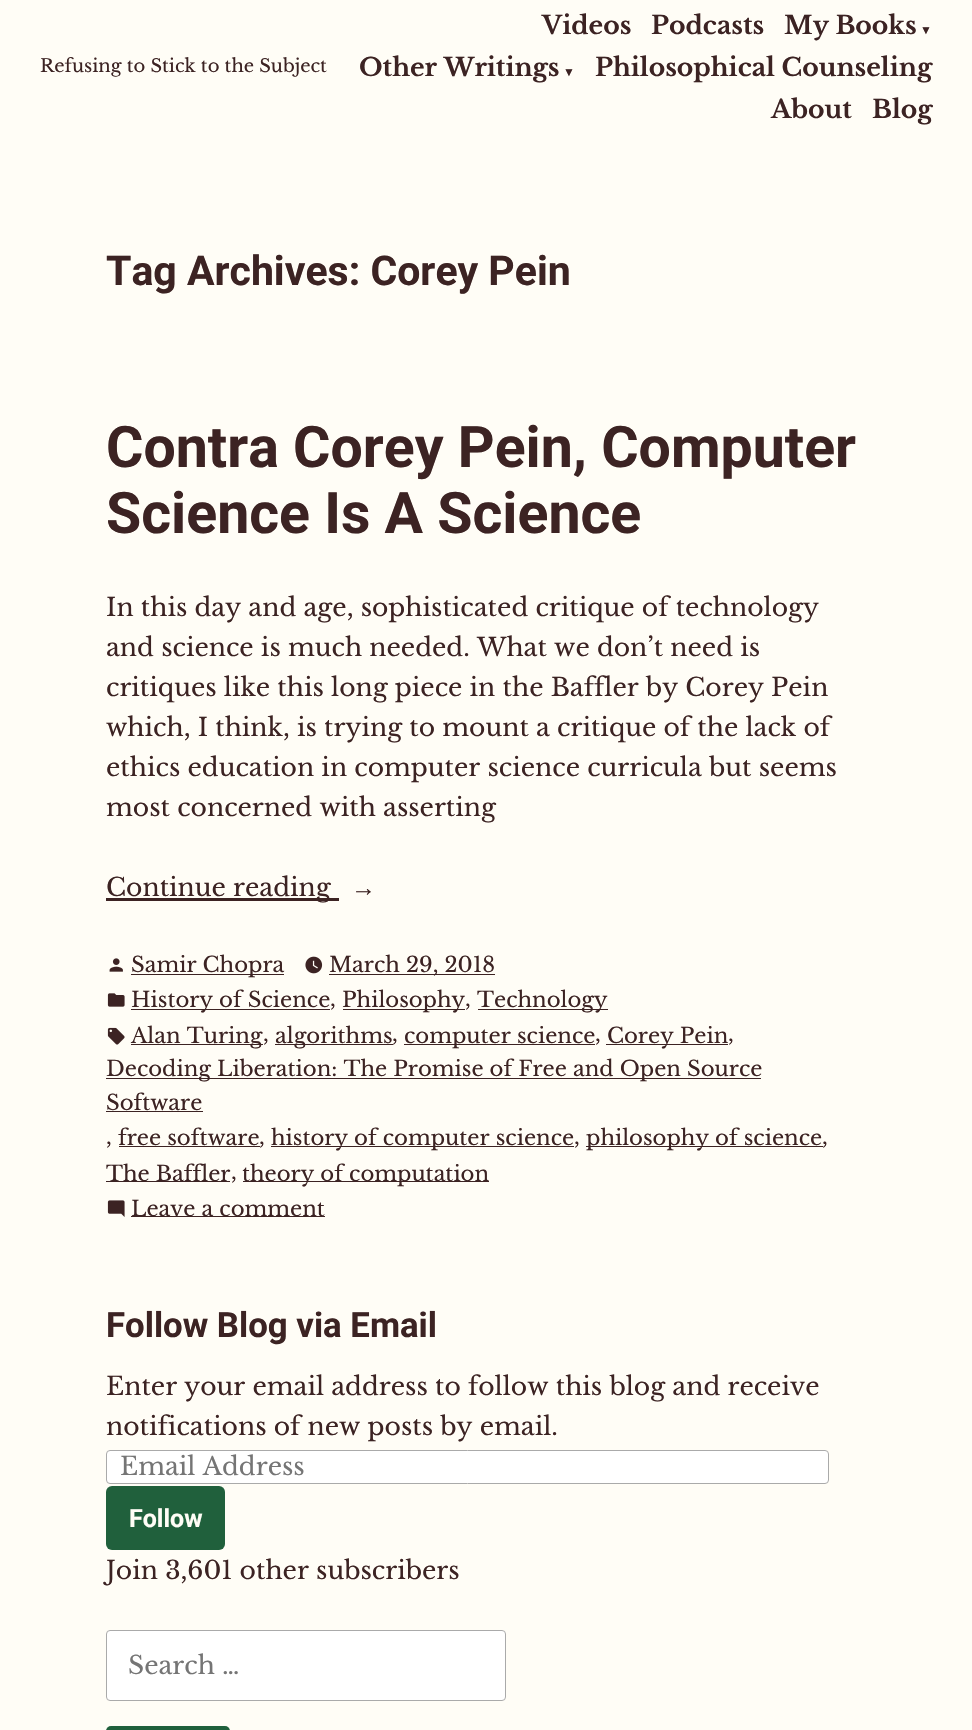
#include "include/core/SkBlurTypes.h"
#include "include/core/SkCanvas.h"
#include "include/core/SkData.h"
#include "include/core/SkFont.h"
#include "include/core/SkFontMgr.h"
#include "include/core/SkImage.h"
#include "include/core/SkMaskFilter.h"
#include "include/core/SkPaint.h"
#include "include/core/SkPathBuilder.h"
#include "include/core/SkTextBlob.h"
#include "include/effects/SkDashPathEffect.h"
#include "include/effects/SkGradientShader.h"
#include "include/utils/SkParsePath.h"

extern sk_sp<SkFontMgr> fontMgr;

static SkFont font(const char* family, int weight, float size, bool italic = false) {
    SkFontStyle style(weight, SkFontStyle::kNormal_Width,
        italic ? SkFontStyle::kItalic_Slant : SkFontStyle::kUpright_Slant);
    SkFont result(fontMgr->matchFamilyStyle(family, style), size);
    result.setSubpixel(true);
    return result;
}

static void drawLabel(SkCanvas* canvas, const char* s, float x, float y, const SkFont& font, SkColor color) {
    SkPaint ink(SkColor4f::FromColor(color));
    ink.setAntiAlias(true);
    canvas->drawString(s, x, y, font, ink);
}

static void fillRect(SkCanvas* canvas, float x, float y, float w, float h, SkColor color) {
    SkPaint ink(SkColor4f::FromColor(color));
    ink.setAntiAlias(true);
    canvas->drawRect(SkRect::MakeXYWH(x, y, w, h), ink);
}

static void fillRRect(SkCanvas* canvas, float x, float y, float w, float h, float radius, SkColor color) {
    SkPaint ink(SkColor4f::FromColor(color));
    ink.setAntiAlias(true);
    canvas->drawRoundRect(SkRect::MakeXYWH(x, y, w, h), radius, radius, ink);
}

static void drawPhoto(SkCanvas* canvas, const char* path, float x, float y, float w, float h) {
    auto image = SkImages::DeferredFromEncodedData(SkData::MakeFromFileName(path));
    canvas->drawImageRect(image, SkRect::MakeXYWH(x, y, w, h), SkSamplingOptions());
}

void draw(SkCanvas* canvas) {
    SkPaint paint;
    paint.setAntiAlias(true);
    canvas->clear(0xFFFFFDF6);
    SkFont font1 = font("Libre Baskerville", 400, 18);
    drawLabel(canvas, "Refusing to Stick to the Subject", 40, 72, font1, 0xFF3C2323);
    SkFont font2 = font("Libre Baskerville", 700, 25);
    drawLabel(canvas, "Videos", 542, 34, font2, 0xFF3C2323);
    drawLabel(canvas, "Podcasts", 651, 34, font2, 0xFF3C2323);
    drawLabel(canvas, "My Books", 784, 34, font2, 0xFF3C2323);
    SkFont font3 = font("Liberation Serif", 700, 12);
    drawLabel(canvas, "▼", 920, 34, font3, 0xFF3C2323);
    drawLabel(canvas, "Other Writings", 359, 76, font2, 0xFF3C2323);
    drawLabel(canvas, "▼", 563, 76, font3, 0xFF3C2323);
    drawLabel(canvas, "Philosophical Counseling", 595, 76, font2, 0xFF3C2323);
    drawLabel(canvas, "About", 771, 118, font2, 0xFF3C2323);
    drawLabel(canvas, "Blog", 872, 118, font2, 0xFF3C2323);
    SkFont font4 = font("Roboto", 700, 41);
    drawLabel(canvas, "Tag Archives: Corey Pein", 106, 285, font4, 0xFF3C2323);
    SkFont font5 = font("Roboto", 700, 57.25f);
    drawLabel(canvas, "Contra Corey Pein, Computer", 106, 467, font5, 0xFF3C2323);
    drawLabel(canvas, "Science Is A Science", 106, 533, font5, 0xFF3C2323);
    SkFont font6 = font("Libre Baskerville", 400, 25);
    drawLabel(canvas, "In this day and age, sophisticated critique of technology", 106, 616, font6, 0xFF3C2323);
    drawLabel(canvas, "and science is much needed. What we don’t need is", 106, 656, font6, 0xFF3C2323);
    drawLabel(canvas, "critiques like this long piece in the Baffler by Corey Pein", 106, 696, font6, 0xFF3C2323);
    drawLabel(canvas, "which, I think, is trying to mount a critique of the lack of", 106, 736, font6, 0xFF3C2323);
    drawLabel(canvas, "ethics education in computer science curricula but seems", 106, 776, font6, 0xFF3C2323);
    drawLabel(canvas, "most concerned with asserting", 106, 816, font6, 0xFF3C2323);
    fillRect(canvas, 106, 898, 233, 3, 0xFF3C2323);
    drawLabel(canvas, "Continue reading", 106, 896, font6, 0xFF3C2323);
    SkFont font7 = font("Liberation Serif", 400, 25);
    drawLabel(canvas, "→", 351, 896, font7, 0xFF3C2323);
    drawPhoto(canvas, "assets/img1.png", 109, 958, 14, 14);
    fillRect(canvas, 131, 974, 153, 1, 0xFF3C2323);
    SkFont font8 = font("Libre Baskerville", 400, 21.2f);
    drawLabel(canvas, "Samir Chopra", 131, 972, font8, 0xFF3C2323);
    drawPhoto(canvas, "assets/img2.png", 305, 956, 18, 18);
    fillRect(canvas, 329, 974, 166, 1, 0xFF3C2323);
    drawLabel(canvas, "March 29, 2018", 329, 972, font8, 0xFF3C2323);
    drawPhoto(canvas, "assets/img3.png", 107, 993, 18, 14);
    fillRect(canvas, 131, 1009, 199, 1, 0xFF3C2323);
    drawLabel(canvas, "History of Science", 131, 1007, font8, 0xFF3C2323);
    drawLabel(canvas, ",", 330, 1006, font8, 0xFF3C2323);
    fillRect(canvas, 343, 1009, 122, 1, 0xFF3C2323);
    drawLabel(canvas, "Philosophy", 342, 1007, font8, 0xFF3C2323);
    drawLabel(canvas, ",", 465, 1006, font8, 0xFF3C2323);
    fillRect(canvas, 478, 1009, 130, 1, 0xFF3C2323);
    drawLabel(canvas, "Technology", 477, 1007, font8, 0xFF3C2323);
    drawPhoto(canvas, "assets/img4.png", 107, 1027, 18, 18);
    fillRect(canvas, 131, 1044, 132, 1, 0xFF3C2323);
    drawLabel(canvas, "Alan Turing", 131, 1043, font8, 0xFF3C2323);
    drawLabel(canvas, ",", 263, 1041, font8, 0xFF3C2323);
    fillRect(canvas, 275, 1044, 118, 1, 0xFF3C2323);
    drawLabel(canvas, "algorithms", 275, 1043, font8, 0xFF3C2323);
    drawLabel(canvas, ",", 392, 1041, font8, 0xFF3C2323);
    fillRect(canvas, 404, 1044, 191, 1, 0xFF3C2323);
    drawLabel(canvas, "computer science", 404, 1043, font8, 0xFF3C2323);
    drawLabel(canvas, ",", 595, 1041, font8, 0xFF3C2323);
    fillRect(canvas, 606, 1044, 122, 1, 0xFF3C2323);
    drawLabel(canvas, "Corey Pein", 607, 1043, font8, 0xFF3C2323);
    drawLabel(canvas, ",", 728, 1041, font8, 0xFF3C2323);
    fillRect(canvas, 106, 1078, 655, 1, 0xFF3C2323);
    drawLabel(canvas, "Decoding Liberation: The Promise of Free and Open Source", 106, 1076, font8, 0xFF3C2323);
    drawLabel(canvas, "Software", 106, 1110, font8, 0xFF3C2323);
    fillRect(canvas, 106, 1111, 97, 1, 0xFF3C2323);
    drawLabel(canvas, ",", 106, 1144, font8, 0xFF3C2323);
    drawLabel(canvas, "free software", 118, 1145, font8, 0xFF3C2323);
    fillRect(canvas, 119, 1146, 141, 1, 0xFF3C2323);
    drawLabel(canvas, ",", 259, 1144, font8, 0xFF3C2323);
    fillRect(canvas, 271, 1146, 303, 1, 0xFF3C2323);
    drawLabel(canvas, "history of computer science", 271, 1145, font8, 0xFF3C2323);
    drawLabel(canvas, ",", 574, 1144, font8, 0xFF3C2323);
    fillRect(canvas, 586, 1146, 237, 1, 0xFF3C2323);
    drawLabel(canvas, "philosophy of science", 586, 1145, font8, 0xFF3C2323);
    drawLabel(canvas, ",", 822, 1144, font8, 0xFF3C2323);
    fillRect(canvas, 106, 1181, 124, 1, 0xFF3C2323);
    drawLabel(canvas, "The Baffler", 106, 1181, font8, 0xFF3C2323);
    drawLabel(canvas, ",", 231, 1179, font8, 0xFF3C2323);
    fillRect(canvas, 243, 1181, 246, 1, 0xFF3C2323);
    drawLabel(canvas, "theory of computation", 242, 1181, font8, 0xFF3C2323);
    drawPhoto(canvas, "assets/img5.png", 107, 1200, 18, 17);
    fillRect(canvas, 131, 1216, 194, 1, 0xFF3C2323);
    drawLabel(canvas, "Leave a comment", 131, 1216, font8, 0xFF3C2323);
    SkFont font9 = font("Roboto", 700, 34.75f);
    drawLabel(canvas, "Follow Blog via Email", 106, 1337, font9, 0xFF3C2323);
    drawLabel(canvas, "Enter your email address to follow this blog and receive", 106, 1395, font6, 0xFF3C2323);
    drawLabel(canvas, "notifications of new posts by email.", 106, 1435, font6, 0xFF3C2323);
    paint.setColor(0xFFFFFFFF);
    canvas->drawRoundRect(SkRect::MakeXYWH(106.5f, 1450.5f, 722, 33), 3.5f, 3.5f, paint);
    paint.setStroke(true);
    paint.setStrokeWidth(1);
    paint.setColor(0xFFAAAAAA);
    canvas->drawRoundRect(SkRect::MakeXYWH(106.5f, 1450.5f, 722, 33), 3.5f, 3.5f, paint);
    drawLabel(canvas, "Email Address", 120, 1475, font6, 0xFF757575);
    fillRRect(canvas, 106, 1486, 119, 64, 6, 0xFF20603C);
    SkFont font10 = font("Roboto", 700, 25);
    drawLabel(canvas, "Follow", 129, 1527, font10, 0xFFFFFDF6);
    drawLabel(canvas, "Join 3,601 other subscribers", 106, 1579, font6, 0xFF3C2323);
    paint.setStroke(false);
    paint.setColor(0xFFFFFFFF);
    canvas->drawRoundRect(SkRect::MakeXYWH(106.5f, 1630.5f, 399, 70), 3.5f, 3.5f, paint);
    paint.setStroke(true);
    paint.setColor(0xFFAAAAAA);
    canvas->drawRoundRect(SkRect::MakeXYWH(106.5f, 1630.5f, 399, 70), 3.5f, 3.5f, paint);
    drawLabel(canvas, "Search …", 128, 1674, font6, 0xFF757575);
    fillRRect(canvas, 106, 1726, 124, 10, 6, 0xFF20603C);
}
